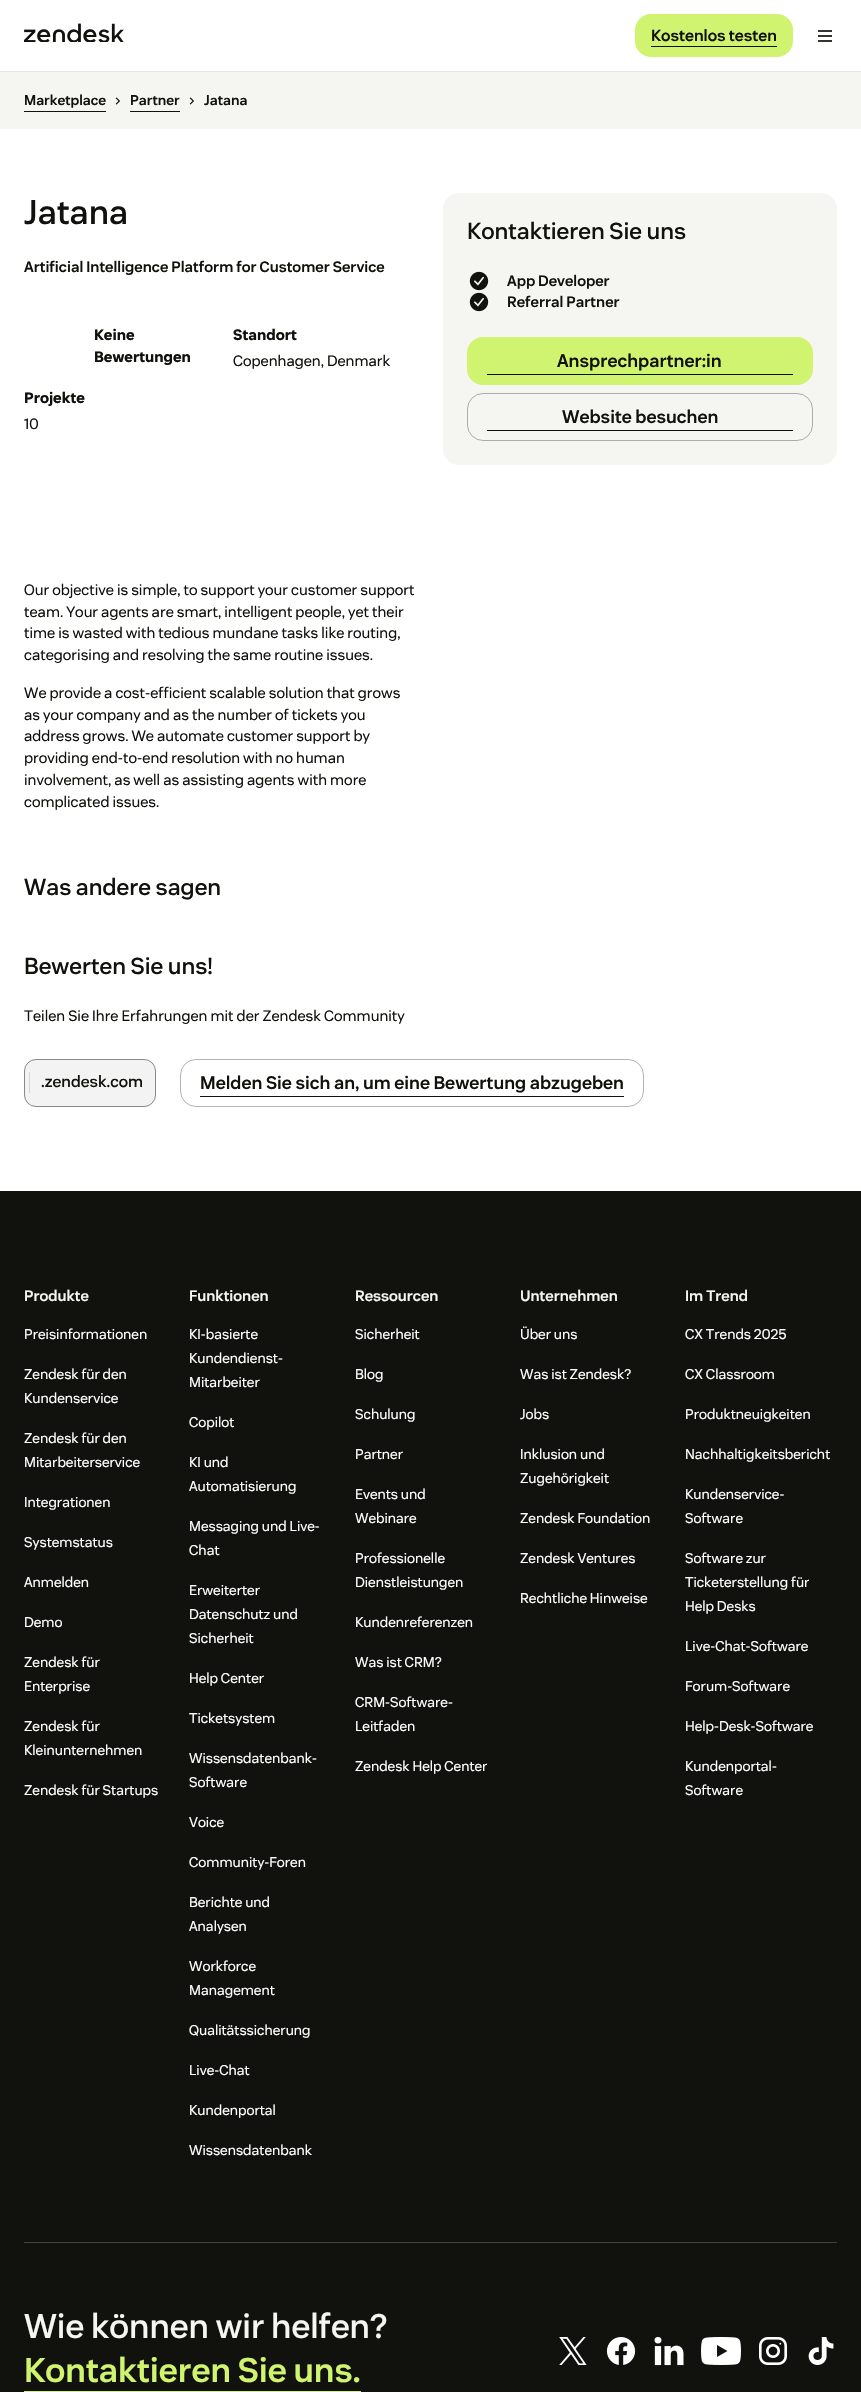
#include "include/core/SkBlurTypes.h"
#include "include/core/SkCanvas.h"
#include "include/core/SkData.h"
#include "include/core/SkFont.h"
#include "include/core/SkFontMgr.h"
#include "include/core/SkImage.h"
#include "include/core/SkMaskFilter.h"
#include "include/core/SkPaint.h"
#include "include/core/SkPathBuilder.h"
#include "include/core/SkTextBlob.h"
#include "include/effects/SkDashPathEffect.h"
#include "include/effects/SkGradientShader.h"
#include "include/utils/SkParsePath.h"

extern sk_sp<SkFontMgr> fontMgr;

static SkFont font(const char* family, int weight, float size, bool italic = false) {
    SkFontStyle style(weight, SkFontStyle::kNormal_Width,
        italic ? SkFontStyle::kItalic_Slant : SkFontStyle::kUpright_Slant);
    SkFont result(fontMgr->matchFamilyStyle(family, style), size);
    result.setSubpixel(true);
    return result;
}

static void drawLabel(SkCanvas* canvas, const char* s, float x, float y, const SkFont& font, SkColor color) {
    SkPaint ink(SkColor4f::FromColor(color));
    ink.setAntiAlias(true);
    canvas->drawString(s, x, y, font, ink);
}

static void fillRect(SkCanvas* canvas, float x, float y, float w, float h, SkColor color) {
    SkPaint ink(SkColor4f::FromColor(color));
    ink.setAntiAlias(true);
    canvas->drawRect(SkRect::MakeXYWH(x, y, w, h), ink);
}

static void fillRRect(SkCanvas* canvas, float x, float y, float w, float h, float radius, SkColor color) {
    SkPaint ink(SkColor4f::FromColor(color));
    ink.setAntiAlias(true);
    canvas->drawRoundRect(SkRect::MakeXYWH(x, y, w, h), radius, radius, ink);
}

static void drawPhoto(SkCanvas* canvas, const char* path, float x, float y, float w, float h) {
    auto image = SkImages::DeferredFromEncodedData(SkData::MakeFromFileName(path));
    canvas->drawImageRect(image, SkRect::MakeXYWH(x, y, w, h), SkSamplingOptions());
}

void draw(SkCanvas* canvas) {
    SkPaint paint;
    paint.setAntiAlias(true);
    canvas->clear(0xFF11110D);
    fillRect(canvas, 0, 0, 861, 71, 0xFFFFFFFF);
    fillRect(canvas, 0, 71, 861, 1, 0xFFE7E7E7);
    drawPhoto(canvas, "assets/img1.png", 24, 23, 100, 19);
    fillRRect(canvas, 635, 14, 158, 43, 16, 0xFFD1F470);
    fillRect(canvas, 651, 46, 126, 1, 0xFF11110D);
    SkFont font1 = font("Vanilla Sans", 600, 16);
    drawLabel(canvas, "Kostenlos testen", 651, 41, font1, 0xFF11110D);
    drawPhoto(canvas, "assets/img2.png", 818, 30, 14, 12);
    fillRect(canvas, 0, 129, 861, 1062, 0xFFFFFFFF);
    fillRect(canvas, 0, 72, 861, 57, 0xFFF5F5F2);
    SkFont font2 = font("Vanilla Sans", 600, 14);
    drawLabel(canvas, "Marketplace", 24, 105, font2, 0xFF11110D);
    fillRect(canvas, 24, 111, 82, 1, 0xFF11110D);
    drawPhoto(canvas, "assets/img3.png", 115, 97, 5, 8);
    drawLabel(canvas, "Partner", 130, 105, font2, 0xFF11110D);
    fillRect(canvas, 130, 111, 50, 1, 0xFF11110D);
    drawPhoto(canvas, "assets/img3.png", 189, 97, 5, 8);
    drawLabel(canvas, "Jatana", 204, 105, font2, 0xFF11110D);
    SkFont font3 = font("Vanilla Sans", 500, 34);
    drawLabel(canvas, "Jatana", 24, 224, font3, 0xFF11110D);
    SkFont font4 = font("Vanilla Sans", 600, 15);
    drawLabel(canvas, "Artificial Intelligence Platform for Customer Service", 24, 272, font4, 0xFF11110D);
    SkFont font5 = font("Vanilla Sans", 700, 15);
    drawLabel(canvas, "Keine", 94, 340, font5, 0xFF11110D);
    drawLabel(canvas, "Bewertungen", 94, 362, font5, 0xFF11110D);
    drawLabel(canvas, "Standort", 233, 340, font5, 0xFF11110D);
    SkFont font6 = font("Vanilla Sans", 400, 15);
    drawLabel(canvas, "Copenhagen, Denmark", 233, 366, font6, 0xFF11110D);
    drawLabel(canvas, "Projekte", 24, 403, font5, 0xFF11110D);
    drawLabel(canvas, "10", 24, 429, font6, 0xFF11110D);
    drawLabel(canvas, "Our objective is simple, to support your customer support", 24, 595, font6, 0xFF11110D);
    drawLabel(canvas, "team. Your agents are smart, intelligent people, yet their", 24, 617, font6, 0xFF11110D);
    drawLabel(canvas, "time is wasted with tedious mundane tasks like routing,", 24, 638, font6, 0xFF11110D);
    drawLabel(canvas, "categorising and resolving the same routine issues.", 24, 660, font6, 0xFF11110D);
    drawLabel(canvas, "We provide a cost-efficient scalable solution that grows", 24, 698, font6, 0xFF11110D);
    drawLabel(canvas, "as your company and as the number of tickets you", 24, 720, font6, 0xFF11110D);
    drawLabel(canvas, "address grows. We automate customer support by", 24, 741, font6, 0xFF11110D);
    drawLabel(canvas, "providing end-to-end resolution with no human", 24, 763, font6, 0xFF11110D);
    drawLabel(canvas, "involvement, as well as assisting agents with more", 24, 785, font6, 0xFF11110D);
    drawLabel(canvas, "complicated issues.", 24, 807, font6, 0xFF11110D);
    SkFont font7 = font("Vanilla Sans", 500, 23);
    drawLabel(canvas, "Was andere sagen", 24, 895, font7, 0xFF11110D);
    drawLabel(canvas, "Bewerten Sie uns!", 24, 974, font7, 0xFF11110D);
    drawLabel(canvas, "Teilen Sie Ihre Erfahrungen mit der Zendesk Community", 24, 1021, font6, 0xFF11110D);
    fillRRect(canvas, 24, 1059, 132, 48, 12, 0xFFF3F3F3);
    paint.setStroke(true);
    paint.setStrokeWidth(1);
    paint.setColor(0x7811110D);
    canvas->drawRoundRect(SkRect::MakeXYWH(24.5f, 1059.5f, 131, 47), 11.5f, 11.5f, paint);
    fillRect(canvas, 29, 1072, 1, 21, 0xFFD5D5D2);
    SkFont font8 = font("Vanilla Sans", 500, 16);
    drawLabel(canvas, ".zendesk.com", 41, 1087, font8, 0xFF11110D);
    fillRect(canvas, 200, 1096, 424, 1, 0xFF11110D);
    paint.setColor(0xFFB3B3B2);
    canvas->drawRoundRect(SkRect::MakeXYWH(180.5f, 1059.5f, 463, 47), 15.5f, 15.5f, paint);
    SkFont font9 = font("Vanilla Sans", 600, 18);
    drawLabel(canvas, "Melden Sie sich an, um eine Bewertung abzugeben", 200, 1089, font9, 0xFF11110D);
    fillRRect(canvas, 443, 193, 394, 272, 16, 0xFFF5F5F2);
    drawLabel(canvas, "Kontaktieren Sie uns", 467, 239, font7, 0xFF11110D);
    drawPhoto(canvas, "assets/img4.png", 469, 271, 20, 20);
    drawLabel(canvas, "App Developer", 507, 286, font4, 0xFF11110D);
    drawPhoto(canvas, "assets/img4.png", 469, 292, 20, 20);
    drawLabel(canvas, "Referral Partner", 507, 307, font4, 0xFF11110D);
    fillRRect(canvas, 467, 337, 346, 48, 16, 0xFFD1F470);
    fillRect(canvas, 487, 374, 306, 1, 0xFF11110D);
    drawLabel(canvas, "Ansprechpartner:in", 557, 367, font9, 0xFF11110D);
    fillRect(canvas, 487, 430, 306, 1, 0xFF11110D);
    paint.setColor(0xFFACACA9);
    canvas->drawRoundRect(SkRect::MakeXYWH(467.5f, 393.5f, 345, 47), 15.5f, 15.5f, paint);
    drawLabel(canvas, "Website besuchen", 562, 423, font9, 0xFF11110D);
    drawLabel(canvas, "Produkte", 24, 1301, font4, 0xFFF5F5F2);
    SkFont font10 = font("Vanilla Sans", 400, 14);
    drawLabel(canvas, "Preisinformationen", 24, 1339, font10, 0xFFFFFFFF);
    drawLabel(canvas, "Zendesk für den", 24, 1379, font10, 0xFFFFFFFF);
    drawLabel(canvas, "Kundenservice", 24, 1403, font10, 0xFFFFFFFF);
    drawLabel(canvas, "Zendesk für den", 24, 1443, font10, 0xFFFFFFFF);
    drawLabel(canvas, "Mitarbeiterservice", 24, 1467, font10, 0xFFFFFFFF);
    drawLabel(canvas, "Integrationen", 24, 1507, font10, 0xFFFFFFFF);
    drawLabel(canvas, "Systemstatus", 24, 1547, font10, 0xFFFFFFFF);
    drawLabel(canvas, "Anmelden", 24, 1587, font10, 0xFFFFFFFF);
    drawLabel(canvas, "Demo", 24, 1627, font10, 0xFFFFFFFF);
    drawLabel(canvas, "Zendesk für", 24, 1667, font10, 0xFFFFFFFF);
    drawLabel(canvas, "Enterprise", 24, 1691, font10, 0xFFFFFFFF);
    drawLabel(canvas, "Zendesk für", 24, 1731, font10, 0xFFFFFFFF);
    drawLabel(canvas, "Kleinunternehmen", 24, 1755, font10, 0xFFFFFFFF);
    drawLabel(canvas, "Zendesk für Startups", 24, 1795, font10, 0xFFFFFFFF);
    drawLabel(canvas, "Funktionen", 189, 1301, font4, 0xFFF5F5F2);
    drawLabel(canvas, "KI-basierte", 189, 1339, font10, 0xFFFFFFFF);
    drawLabel(canvas, "Kundendienst-", 189, 1363, font10, 0xFFFFFFFF);
    drawLabel(canvas, "Mitarbeiter", 189, 1387, font10, 0xFFFFFFFF);
    drawLabel(canvas, "Copilot", 189, 1427, font10, 0xFFFFFFFF);
    drawLabel(canvas, "KI und", 189, 1467, font10, 0xFFFFFFFF);
    drawLabel(canvas, "Automatisierung", 189, 1491, font10, 0xFFFFFFFF);
    drawLabel(canvas, "Messaging und Live-", 189, 1531, font10, 0xFFFFFFFF);
    drawLabel(canvas, "Chat", 189, 1555, font10, 0xFFFFFFFF);
    drawLabel(canvas, "Erweiterter", 189, 1595, font10, 0xFFFFFFFF);
    drawLabel(canvas, "Datenschutz und", 189, 1619, font10, 0xFFFFFFFF);
    drawLabel(canvas, "Sicherheit", 189, 1643, font10, 0xFFFFFFFF);
    drawLabel(canvas, "Help Center", 189, 1683, font10, 0xFFFFFFFF);
    drawLabel(canvas, "Ticketsystem", 189, 1723, font10, 0xFFFFFFFF);
    drawLabel(canvas, "Wissensdatenbank-", 189, 1763, font10, 0xFFFFFFFF);
    drawLabel(canvas, "Software", 189, 1787, font10, 0xFFFFFFFF);
    drawLabel(canvas, "Voice", 189, 1827, font10, 0xFFFFFFFF);
    drawLabel(canvas, "Community-Foren", 189, 1867, font10, 0xFFFFFFFF);
    drawLabel(canvas, "Berichte und", 189, 1907, font10, 0xFFFFFFFF);
    drawLabel(canvas, "Analysen", 189, 1931, font10, 0xFFFFFFFF);
    drawLabel(canvas, "Workforce", 189, 1971, font10, 0xFFFFFFFF);
    drawLabel(canvas, "Management", 189, 1995, font10, 0xFFFFFFFF);
    drawLabel(canvas, "Qualitätssicherung", 189, 2035, font10, 0xFFFFFFFF);
    drawLabel(canvas, "Live-Chat", 189, 2075, font10, 0xFFFFFFFF);
    drawLabel(canvas, "Kundenportal", 189, 2115, font10, 0xFFFFFFFF);
    drawLabel(canvas, "Wissensdatenbank", 189, 2155, font10, 0xFFFFFFFF);
    drawLabel(canvas, "Ressourcen", 355, 1301, font4, 0xFFF5F5F2);
    drawLabel(canvas, "Sicherheit", 355, 1339, font10, 0xFFFFFFFF);
    drawLabel(canvas, "Blog", 355, 1379, font10, 0xFFFFFFFF);
    drawLabel(canvas, "Schulung", 355, 1419, font10, 0xFFFFFFFF);
    drawLabel(canvas, "Partner", 355, 1459, font10, 0xFFFFFFFF);
    drawLabel(canvas, "Events und", 355, 1499, font10, 0xFFFFFFFF);
    drawLabel(canvas, "Webinare", 355, 1523, font10, 0xFFFFFFFF);
    drawLabel(canvas, "Professionelle", 355, 1563, font10, 0xFFFFFFFF);
    drawLabel(canvas, "Dienstleistungen", 355, 1587, font10, 0xFFFFFFFF);
    drawLabel(canvas, "Kundenreferenzen", 355, 1627, font10, 0xFFFFFFFF);
    drawLabel(canvas, "Was ist CRM?", 355, 1667, font10, 0xFFFFFFFF);
    drawLabel(canvas, "CRM-Software-", 355, 1707, font10, 0xFFFFFFFF);
    drawLabel(canvas, "Leitfaden", 355, 1731, font10, 0xFFFFFFFF);
    drawLabel(canvas, "Zendesk Help Center", 355, 1771, font10, 0xFFFFFFFF);
    drawLabel(canvas, "Unternehmen", 520, 1301, font4, 0xFFF5F5F2);
    drawLabel(canvas, "Über uns", 520, 1339, font10, 0xFFFFFFFF);
    drawLabel(canvas, "Was ist Zendesk?", 520, 1379, font10, 0xFFFFFFFF);
    drawLabel(canvas, "Jobs", 520, 1419, font10, 0xFFFFFFFF);
    drawLabel(canvas, "Inklusion und", 520, 1459, font10, 0xFFFFFFFF);
    drawLabel(canvas, "Zugehörigkeit", 520, 1483, font10, 0xFFFFFFFF);
    drawLabel(canvas, "Zendesk Foundation", 520, 1523, font10, 0xFFFFFFFF);
    drawLabel(canvas, "Zendesk Ventures", 520, 1563, font10, 0xFFFFFFFF);
    drawLabel(canvas, "Rechtliche Hinweise", 520, 1603, font10, 0xFFFFFFFF);
    drawLabel(canvas, "Im Trend", 685, 1301, font4, 0xFFF5F5F2);
    drawLabel(canvas, "CX Trends 2025", 685, 1339, font10, 0xFFFFFFFF);
    drawLabel(canvas, "CX Classroom", 685, 1379, font10, 0xFFFFFFFF);
    drawLabel(canvas, "Produktneuigkeiten", 685, 1419, font10, 0xFFFFFFFF);
    drawLabel(canvas, "Nachhaltigkeitsbericht", 685, 1459, font10, 0xFFFFFFFF);
    drawLabel(canvas, "Kundenservice-", 685, 1499, font10, 0xFFFFFFFF);
    drawLabel(canvas, "Software", 685, 1523, font10, 0xFFFFFFFF);
    drawLabel(canvas, "Software zur", 685, 1563, font10, 0xFFFFFFFF);
    drawLabel(canvas, "Ticketerstellung für", 685, 1587, font10, 0xFFFFFFFF);
    drawLabel(canvas, "Help Desks", 685, 1611, font10, 0xFFFFFFFF);
    drawLabel(canvas, "Live-Chat-Software", 685, 1651, font10, 0xFFFFFFFF);
    drawLabel(canvas, "Forum-Software", 685, 1691, font10, 0xFFFFFFFF);
    drawLabel(canvas, "Help-Desk-Software", 685, 1731, font10, 0xFFFFFFFF);
    drawLabel(canvas, "Kundenportal-", 685, 1771, font10, 0xFFFFFFFF);
    drawLabel(canvas, "Software", 685, 1795, font10, 0xFFFFFFFF);
    fillRect(canvas, 24, 2242, 813, 1, 0xFF42433E);
    drawLabel(canvas, "Wie können wir helfen?", 24, 2338, font3, 0xFFF5F5F2);
    SkFont font11 = font("Vanilla Sans", 600, 34);
    drawLabel(canvas, "Kontaktieren Sie uns.", 24, 2382, font11, 0xFFD1F470);
    fillRect(canvas, 24, 2391, 337, 1, 0xFFD1F470);
    drawPhoto(canvas, "assets/img5.png", 559, 2337, 28, 28);
    drawPhoto(canvas, "assets/img6.png", 606, 2337, 30, 28);
    drawPhoto(canvas, "assets/img7.png", 654, 2337, 30, 29);
    drawPhoto(canvas, "assets/img8.png", 701, 2337, 40, 28);
    drawPhoto(canvas, "assets/img9.png", 759, 2337, 28, 28);
    drawPhoto(canvas, "assets/img10.png", 808, 2337, 26, 28);
}
